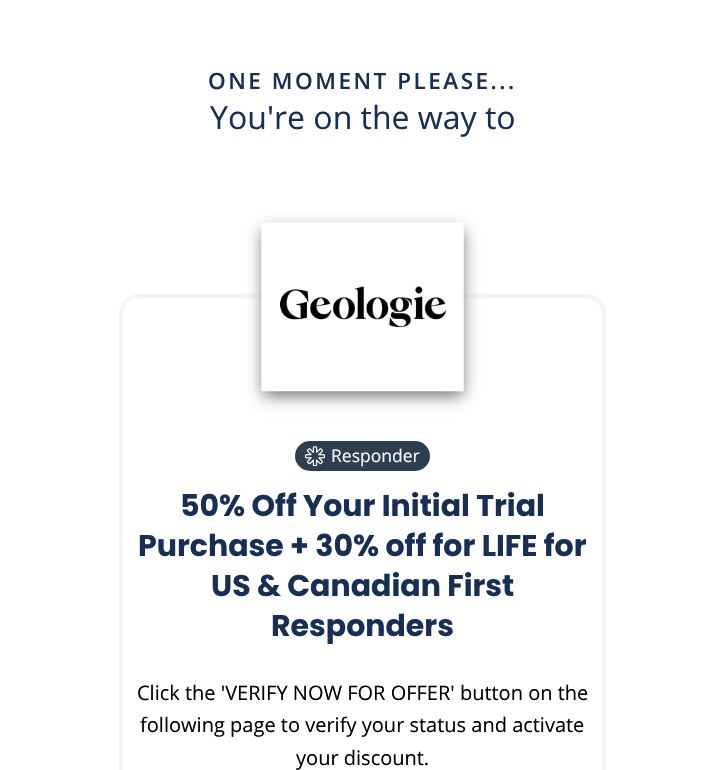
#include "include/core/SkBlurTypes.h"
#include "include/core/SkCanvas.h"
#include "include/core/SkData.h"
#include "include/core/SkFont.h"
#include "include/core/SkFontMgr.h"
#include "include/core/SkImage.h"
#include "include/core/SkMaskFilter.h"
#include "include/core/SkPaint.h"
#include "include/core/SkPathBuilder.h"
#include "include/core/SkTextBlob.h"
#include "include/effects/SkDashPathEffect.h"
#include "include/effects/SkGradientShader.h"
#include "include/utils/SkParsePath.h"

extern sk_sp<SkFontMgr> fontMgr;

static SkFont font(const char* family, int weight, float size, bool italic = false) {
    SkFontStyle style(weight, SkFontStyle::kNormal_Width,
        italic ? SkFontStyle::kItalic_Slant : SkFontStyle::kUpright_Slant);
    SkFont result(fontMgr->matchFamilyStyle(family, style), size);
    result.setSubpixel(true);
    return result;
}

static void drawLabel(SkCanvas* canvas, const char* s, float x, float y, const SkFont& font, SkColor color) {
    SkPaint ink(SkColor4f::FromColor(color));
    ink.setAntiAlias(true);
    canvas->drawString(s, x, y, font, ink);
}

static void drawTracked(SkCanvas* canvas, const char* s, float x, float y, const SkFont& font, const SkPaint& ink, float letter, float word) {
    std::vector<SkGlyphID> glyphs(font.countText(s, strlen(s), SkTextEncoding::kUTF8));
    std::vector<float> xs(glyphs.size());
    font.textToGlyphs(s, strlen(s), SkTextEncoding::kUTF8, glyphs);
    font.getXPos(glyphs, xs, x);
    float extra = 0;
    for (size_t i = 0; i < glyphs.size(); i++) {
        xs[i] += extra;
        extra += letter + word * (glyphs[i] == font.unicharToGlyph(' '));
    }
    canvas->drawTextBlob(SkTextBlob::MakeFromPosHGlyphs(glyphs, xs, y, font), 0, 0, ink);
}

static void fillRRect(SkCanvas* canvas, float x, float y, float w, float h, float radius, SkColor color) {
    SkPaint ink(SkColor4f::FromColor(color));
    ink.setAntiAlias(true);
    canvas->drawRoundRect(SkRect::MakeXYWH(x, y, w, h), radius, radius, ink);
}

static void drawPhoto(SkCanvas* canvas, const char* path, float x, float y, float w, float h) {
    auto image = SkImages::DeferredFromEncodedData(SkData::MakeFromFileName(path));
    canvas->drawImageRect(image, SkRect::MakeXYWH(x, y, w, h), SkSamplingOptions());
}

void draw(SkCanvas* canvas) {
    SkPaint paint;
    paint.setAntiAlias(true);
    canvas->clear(0xFFFFFFFF);
    SkFont font1 = font("Open Sans", 600, 22.5f);
    paint.setColor(0xFF172F55);
    drawTracked(canvas, "ONE MOMENT PLEASE...", 208, 89, font1, paint, 2.5f, 0);
    SkFont font2 = font("Open Sans", 400, 32);
    drawLabel(canvas, "You're on the way to", 210, 129, font2, 0xFF172F55);
    paint.setStroke(true);
    paint.setStrokeWidth(4);
    paint.setColor(0xFFF5F5F5);
    canvas->drawRoundRect(SkRect::MakeXYWH(121, 296, 483, 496), 18, 18, paint);
    paint.setStroke(false);
    paint.setColor(0xFF757575);
    paint.setMaskFilter(SkMaskFilter::MakeBlur(kNormal_SkBlurStyle, 7.5f));
    canvas->drawRect(SkRect::MakeXYWH(263, 230, 200, 166), paint);
    paint.setMaskFilter(nullptr);
    drawPhoto(canvas, "assets/img1.png", 261, 222, 203, 170);
    fillRRect(canvas, 295, 441, 135, 30, 15, 0xFF2D3E51);
    drawPhoto(canvas, "assets/img2.png", 305, 446, 20, 20);
    SkFont font3 = font("Open Sans", 400, 17.5f);
    drawLabel(canvas, "Responder", 331, 462, font3, 0xFFF9F9F9);
    SkFont font4 = font("Poppins", 700, 30);
    drawLabel(canvas, "50% Off Your Initial Trial", 180, 516, font4, 0xFF172F55);
    drawLabel(canvas, "Purchase + 30% off for LIFE for", 138, 556, font4, 0xFF172F55);
    drawLabel(canvas, "US & Canadian First", 211, 596, font4, 0xFF172F55);
    drawLabel(canvas, "Responders", 271, 636, font4, 0xFF172F55);
    SkFont font5 = font("Open Sans", 400, 20);
    drawLabel(canvas, "Click the 'VERIFY NOW FOR OFFER' button on the", 137, 700, font5, 0xFF000000);
    drawLabel(canvas, "following page to verify your status and activate", 140, 732, font5, 0xFF000000);
    drawLabel(canvas, "your discount.", 296, 765, font5, 0xFF000000);
}
